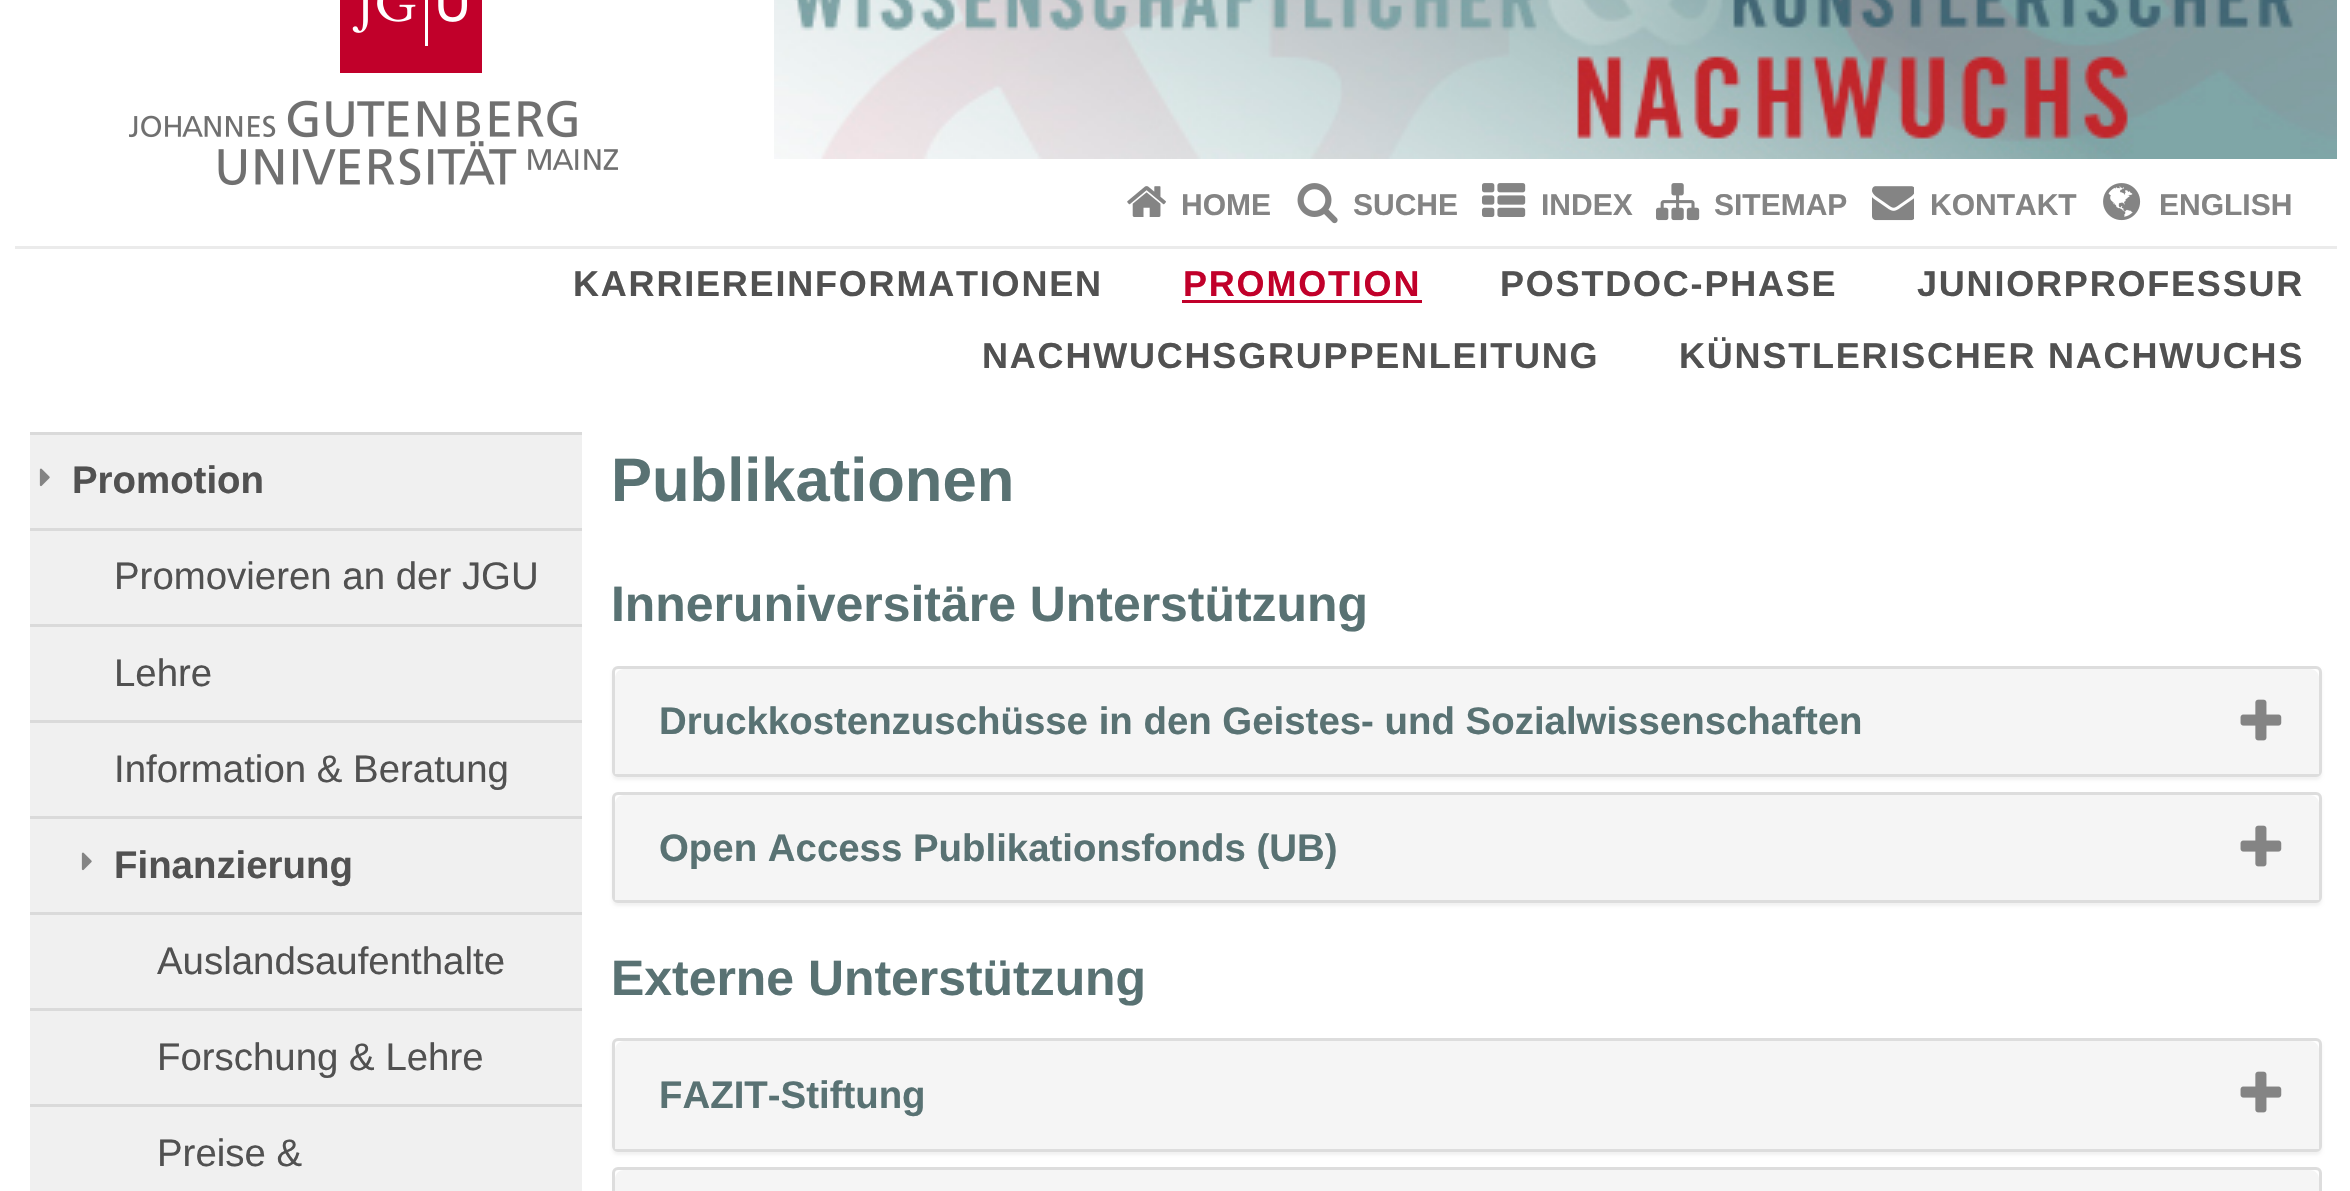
#include "include/core/SkBlurTypes.h"
#include "include/core/SkCanvas.h"
#include "include/core/SkData.h"
#include "include/core/SkFont.h"
#include "include/core/SkFontMgr.h"
#include "include/core/SkImage.h"
#include "include/core/SkMaskFilter.h"
#include "include/core/SkPaint.h"
#include "include/core/SkPathBuilder.h"
#include "include/core/SkTextBlob.h"
#include "include/effects/SkDashPathEffect.h"
#include "include/effects/SkGradientShader.h"
#include "include/utils/SkParsePath.h"

extern sk_sp<SkFontMgr> fontMgr;

static SkFont font(const char* family, int weight, float size, bool italic = false) {
    SkFontStyle style(weight, SkFontStyle::kNormal_Width,
        italic ? SkFontStyle::kItalic_Slant : SkFontStyle::kUpright_Slant);
    SkFont result(fontMgr->matchFamilyStyle(family, style), size);
    result.setSubpixel(true);
    return result;
}

static void drawLabel(SkCanvas* canvas, const char* s, float x, float y, const SkFont& font, SkColor color) {
    SkPaint ink(SkColor4f::FromColor(color));
    ink.setAntiAlias(true);
    canvas->drawString(s, x, y, font, ink);
}

static void drawTracked(SkCanvas* canvas, const char* s, float x, float y, const SkFont& font, const SkPaint& ink, float letter, float word) {
    std::vector<SkGlyphID> glyphs(font.countText(s, strlen(s), SkTextEncoding::kUTF8));
    std::vector<float> xs(glyphs.size());
    font.textToGlyphs(s, strlen(s), SkTextEncoding::kUTF8, glyphs);
    font.getXPos(glyphs, xs, x);
    float extra = 0;
    for (size_t i = 0; i < glyphs.size(); i++) {
        xs[i] += extra;
        extra += letter + word * (glyphs[i] == font.unicharToGlyph(' '));
    }
    canvas->drawTextBlob(SkTextBlob::MakeFromPosHGlyphs(glyphs, xs, y, font), 0, 0, ink);
}

static void fillRect(SkCanvas* canvas, float x, float y, float w, float h, SkColor color) {
    SkPaint ink(SkColor4f::FromColor(color));
    ink.setAntiAlias(true);
    canvas->drawRect(SkRect::MakeXYWH(x, y, w, h), ink);
}

static void drawPhoto(SkCanvas* canvas, const char* path, float x, float y, float w, float h) {
    auto image = SkImages::DeferredFromEncodedData(SkData::MakeFromFileName(path));
    canvas->drawImageRect(image, SkRect::MakeXYWH(x, y, w, h), SkSamplingOptions());
}

static SkPath parsePath(const char* data, bool evenOdd = false) {
    SkPath result = *SkParsePath::FromSVGString(data);
    if (evenOdd) result.setFillType(SkPathFillType::kEvenOdd);
    return result;
}

void draw(SkCanvas* canvas) {
    SkPaint paint;
    paint.setAntiAlias(true);
    canvas->clear(0xFFFFFFFF);
    drawPhoto(canvas, "assets/img1.png", 129, 0, 489, 186);
    drawPhoto(canvas, "assets/img2.png", 774, 0, 1563, 159);
    drawPhoto(canvas, "assets/img3.png", 1127, 186, 39, 31);
    SkFont font1 = font("Liberation Sans", 700, 30);
    drawLabel(canvas, "HOME", 1181, 215, font1, 0xFF848484);
    drawPhoto(canvas, "assets/img4.png", 1297, 183, 41, 41);
    drawLabel(canvas, "SUCHE", 1353, 215, font1, 0xFF848484);
    drawPhoto(canvas, "assets/img5.png", 1482, 183, 44, 34);
    drawLabel(canvas, "INDEX", 1541, 215, font1, 0xFF848484);
    drawPhoto(canvas, "assets/img6.png", 1656, 183, 44, 38);
    drawLabel(canvas, "SITEMAP", 1714, 215, font1, 0xFF848484);
    drawPhoto(canvas, "assets/img7.png", 1872, 186, 42, 35);
    drawLabel(canvas, "KONTAKT", 1930, 215, font1, 0xFF848484);
    drawPhoto(canvas, "assets/img8.png", 2103, 183, 38, 38);
    drawLabel(canvas, "ENGLISH", 2159, 215, font1, 0xFF848484);
    fillRect(canvas, 15, 246, 2322, 3, 0xFFEBEBEB);
    SkFont font2 = font("Liberation Sans", 700, 36);
    paint.setColor(0xFF515151);
    drawTracked(canvas, "KARRIEREINFORMATIONEN", 573, 296, font2, paint, 1.8f, 0);
    paint.setColor(0xFFC1002A);
    drawTracked(canvas, "PROMOTION", 1183, 296, font2, paint, 1.8f, 0);
    fillRect(canvas, 1182, 300, 240, 3, 0xFFC1002A);
    paint.setColor(0xFF515151);
    drawTracked(canvas, "POSTDOC-PHASE", 1500, 296, font2, paint, 1.8f, 0);
    drawTracked(canvas, "JUNIORPROFESSUR", 1917, 296, font2, paint, 1.8f, 0);
    drawTracked(canvas, "NACHWUCHSGRUPPENLEITUNG", 982, 368, font2, paint, 1.8f, 0);
    drawTracked(canvas, "KÜNSTLERISCHER NACHWUCHS", 1679, 368, font2, paint, 1.8f, 0);
    fillRect(canvas, 30, 435, 552, 756, 0xFFF0F0F0);
    fillRect(canvas, 30, 432, 552, 3, 0xFFDADADA);
    drawPhoto(canvas, "assets/img9.png", 39, 468, 11, 19);
    SkFont font3 = font("Liberation Sans", 700, 38.4f);
    drawLabel(canvas, "Promotion", 72, 493, font3, 0xFF515151);
    fillRect(canvas, 30, 528, 552, 3, 0xFFDADADA);
    SkFont font4 = font("Liberation Sans", 400, 38.4f);
    drawLabel(canvas, "Promovieren an der JGU", 114, 589, font4, 0xFF515151);
    fillRect(canvas, 30, 624, 552, 3, 0xFFDADADA);
    drawLabel(canvas, "Lehre", 114, 686, font4, 0xFF515151);
    fillRect(canvas, 30, 720, 552, 3, 0xFFDADADA);
    drawLabel(canvas, "Information & Beratung", 114, 782, font4, 0xFF515151);
    fillRect(canvas, 30, 816, 552, 3, 0xFFDADADA);
    drawPhoto(canvas, "assets/img9.png", 81, 852, 11, 19);
    drawLabel(canvas, "Finanzierung", 114, 878, font3, 0xFF515151);
    fillRect(canvas, 30, 912, 552, 3, 0xFFDADADA);
    drawLabel(canvas, "Auslandsaufenthalte", 157, 974, font4, 0xFF515151);
    fillRect(canvas, 30, 1008, 552, 3, 0xFFDADADA);
    drawLabel(canvas, "Forschung & Lehre", 157, 1070, font4, 0xFF515151);
    fillRect(canvas, 30, 1104, 552, 3, 0xFFDADADA);
    drawLabel(canvas, "Preise &", 157, 1166, font4, 0xFF515151);
    SkFont font5 = font("Liberation Sans", 700, 61.5f);
    drawLabel(canvas, "Publikationen", 611, 501, font5, 0xFF597273);
    SkFont font6 = font("Liberation Sans", 700, 49.9f);
    drawLabel(canvas, "Inneruniversitäre Unterstützung", 611, 621, font6, 0xFF597273);
    paint.setColor(0x0D000000);
    paint.setMaskFilter(SkMaskFilter::MakeBlur(kNormal_SkBlurStyle, 1.5f));
    canvas->drawRoundRect(SkRect::MakeXYWH(612, 669, 1710, 111), 6, 6, paint);
    paint.setMaskFilter(nullptr);
    paint.setColor(0xFFFFFFFF);
    canvas->drawRoundRect(SkRect::MakeXYWH(613.5f, 667.5f, 1707, 108), 4.5f, 4.5f, paint);
    paint.setStroke(true);
    paint.setStrokeWidth(3);
    paint.setColor(0xFFDDDDDD);
    canvas->drawRoundRect(SkRect::MakeXYWH(613.5f, 667.5f, 1707, 108), 4.5f, 4.5f, paint);
    paint.setStroke(false);
    paint.setColor(0xFFF5F5F5);
    canvas->drawPath(parsePath("M624 669H2310C2315 669 2319 673 2319 678V774H615V678C615 673 619 669 624 669Z"), paint);
    drawPhoto(canvas, "assets/img10.png", 2240, 699, 42, 42);
    drawLabel(canvas, "Druckkostenzuschüsse in den Geistes- und Sozialwissenschaften", 659, 734, font3, 0xFF597273);
    paint.setColor(0x0D000000);
    paint.setMaskFilter(SkMaskFilter::MakeBlur(kNormal_SkBlurStyle, 1.5f));
    canvas->drawRoundRect(SkRect::MakeXYWH(612, 795, 1710, 111), 6, 6, paint);
    paint.setMaskFilter(nullptr);
    paint.setColor(0xFFFFFFFF);
    canvas->drawRoundRect(SkRect::MakeXYWH(613.5f, 793.5f, 1707, 108), 4.5f, 4.5f, paint);
    paint.setStroke(true);
    paint.setColor(0xFFDDDDDD);
    canvas->drawRoundRect(SkRect::MakeXYWH(613.5f, 793.5f, 1707, 108), 4.5f, 4.5f, paint);
    paint.setStroke(false);
    paint.setColor(0xFFF5F5F5);
    canvas->drawPath(parsePath("M624 795H2310C2315 795 2319 799 2319 804V900H615V804C615 799 619 795 624 795Z"), paint);
    drawPhoto(canvas, "assets/img10.png", 2240, 825, 42, 42);
    drawLabel(canvas, "Open Access Publikationsfonds (UB)", 659, 861, font3, 0xFF597273);
    drawLabel(canvas, "Externe Unterstützung", 611, 995, font6, 0xFF597273);
    paint.setColor(0x0D000000);
    paint.setMaskFilter(SkMaskFilter::MakeBlur(kNormal_SkBlurStyle, 1.5f));
    canvas->drawRoundRect(SkRect::MakeXYWH(612, 1041, 1710, 114), 6, 6, paint);
    paint.setMaskFilter(nullptr);
    paint.setColor(0xFFFFFFFF);
    canvas->drawRoundRect(SkRect::MakeXYWH(613.5f, 1039.5f, 1707, 111), 4.5f, 4.5f, paint);
    paint.setStroke(true);
    paint.setColor(0xFFDDDDDD);
    canvas->drawRoundRect(SkRect::MakeXYWH(613.5f, 1039.5f, 1707, 111), 4.5f, 4.5f, paint);
    paint.setStroke(false);
    paint.setColor(0xFFF5F5F5);
    canvas->drawPath(parsePath("M624 1041H2310C2315 1041 2319 1045 2319 1050V1149H615V1050C615 1045 619 1041 624 1041Z"), paint);
    drawPhoto(canvas, "assets/img10.png", 2240, 1071, 42, 42);
    drawLabel(canvas, "FAZIT-Stiftung", 659, 1108, font3, 0xFF597273);
    paint.setStroke(true);
    paint.setColor(0xFFDDDDDD);
    canvas->drawRoundRect(SkRect::MakeXYWH(613.5f, 1168.5f, 1707, 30), 4.5f, 4.5f, paint);
    paint.setStroke(false);
    paint.setColor(0xFFF5F5F5);
    canvas->drawPath(parsePath("M624 1170H2310C2315 1170 2319 1174 2319 1179V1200H615V1179C615 1174 619 1170 624 1170Z"), paint);
}
